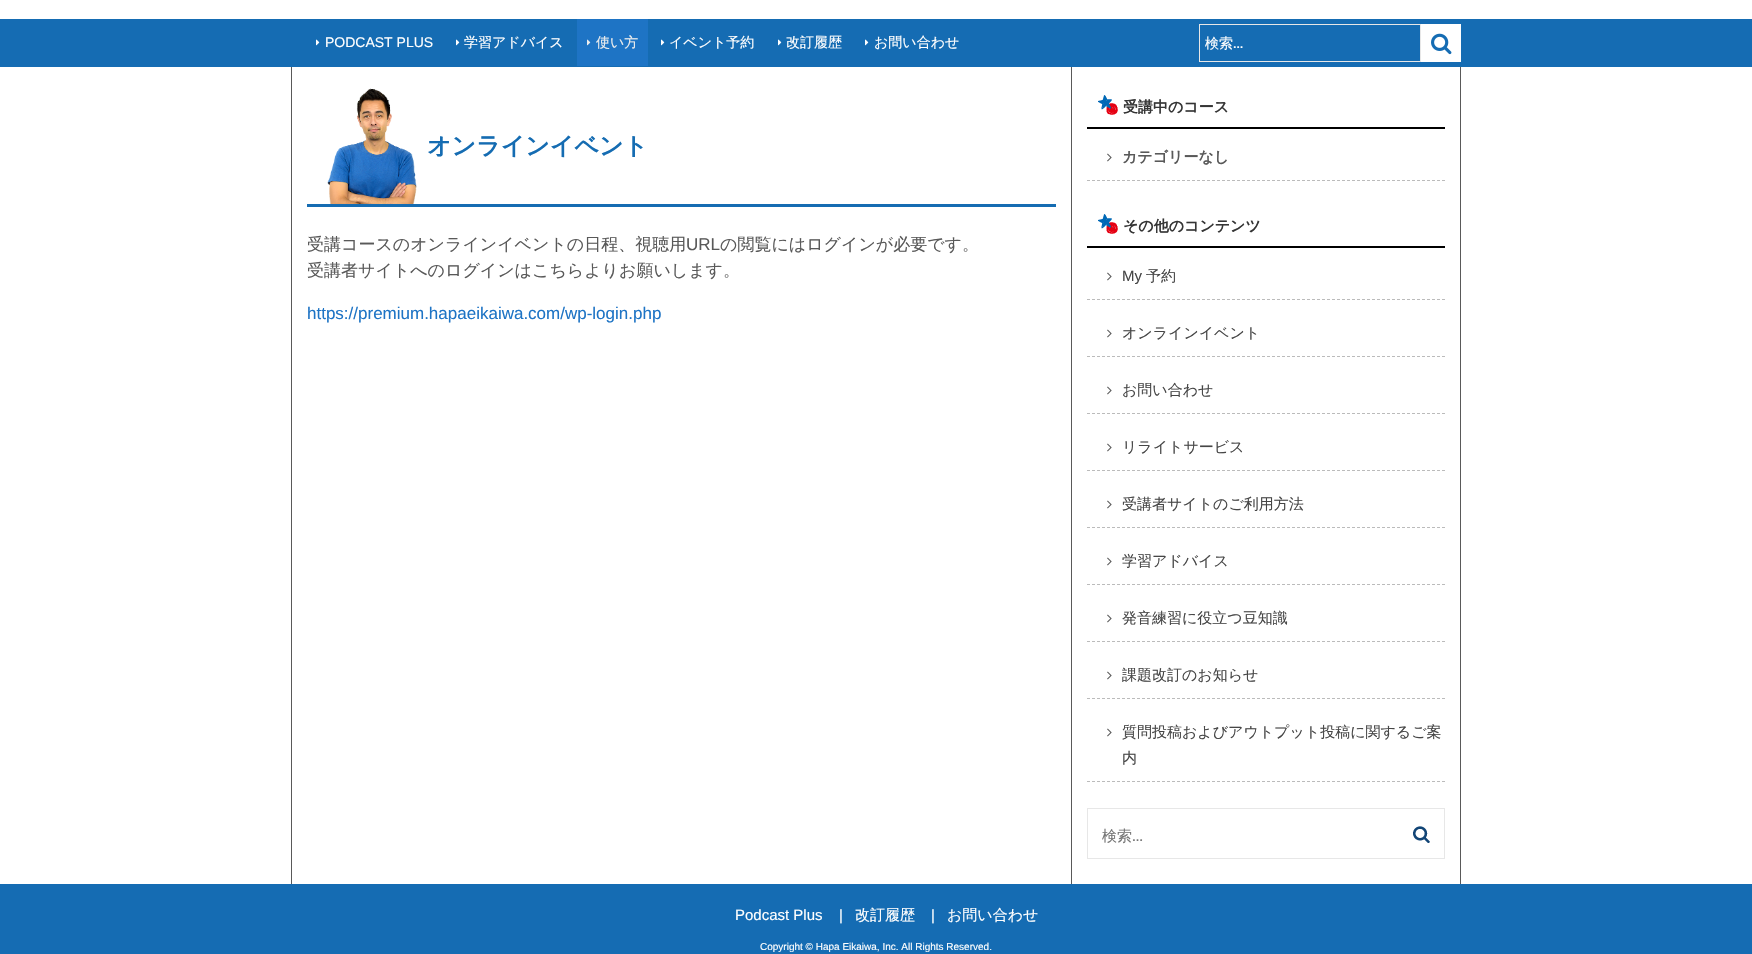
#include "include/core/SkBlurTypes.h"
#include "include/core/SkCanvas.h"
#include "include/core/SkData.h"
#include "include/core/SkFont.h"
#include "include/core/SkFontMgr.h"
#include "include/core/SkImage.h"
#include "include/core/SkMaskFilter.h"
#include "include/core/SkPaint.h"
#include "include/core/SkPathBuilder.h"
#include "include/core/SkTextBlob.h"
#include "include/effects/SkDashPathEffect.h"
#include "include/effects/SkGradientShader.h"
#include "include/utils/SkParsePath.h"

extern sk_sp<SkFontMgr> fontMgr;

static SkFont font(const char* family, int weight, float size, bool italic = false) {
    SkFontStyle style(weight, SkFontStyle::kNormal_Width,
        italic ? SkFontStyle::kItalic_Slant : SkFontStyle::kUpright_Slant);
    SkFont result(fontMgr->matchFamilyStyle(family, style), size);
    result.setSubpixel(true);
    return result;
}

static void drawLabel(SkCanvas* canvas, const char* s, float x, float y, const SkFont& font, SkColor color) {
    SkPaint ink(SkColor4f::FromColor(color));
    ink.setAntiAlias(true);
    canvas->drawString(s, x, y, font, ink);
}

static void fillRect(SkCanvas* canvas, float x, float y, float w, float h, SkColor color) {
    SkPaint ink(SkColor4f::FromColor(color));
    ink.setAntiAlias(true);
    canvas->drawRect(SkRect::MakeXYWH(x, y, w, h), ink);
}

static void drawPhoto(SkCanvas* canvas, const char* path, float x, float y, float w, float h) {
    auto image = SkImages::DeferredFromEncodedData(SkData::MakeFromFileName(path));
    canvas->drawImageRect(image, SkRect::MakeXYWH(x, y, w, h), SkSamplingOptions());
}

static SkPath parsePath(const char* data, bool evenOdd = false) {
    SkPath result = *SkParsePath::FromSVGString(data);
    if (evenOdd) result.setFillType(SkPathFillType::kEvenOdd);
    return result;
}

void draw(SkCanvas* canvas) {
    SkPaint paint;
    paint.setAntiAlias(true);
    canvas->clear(0xFFFFFFFF);
    fillRect(canvas, 0, 19, 1752, 48, 0xFF156CB3);
    drawPhoto(canvas, "assets/img1.png", 316, 39, 4, 7);
    SkFont font1 = font("Liberation Sans", 400, 14);
    drawLabel(canvas, "PODCAST PLUS", 325, 47, font1, 0xFFFFFFFF);
    drawPhoto(canvas, "assets/img1.png", 456, 39, 4, 7);
    SkFont font2 = font("WenQuanYi Zen Hei", 500, 14);
    drawLabel(canvas, "学習アドバイス", 464, 47, font2, 0xFFFFFFFF);
    fillRect(canvas, 577, 19, 71, 47, 0xFF1E74C5);
    drawPhoto(canvas, "assets/img2.png", 587, 39, 4, 7);
    drawLabel(canvas, "使い方", 596, 47, font2, 0xFFEDEDED);
    drawPhoto(canvas, "assets/img1.png", 661, 39, 4, 7);
    drawLabel(canvas, "イベント予約", 669, 47, font2, 0xFFFFFFFF);
    drawPhoto(canvas, "assets/img1.png", 778, 39, 4, 7);
    drawLabel(canvas, "改訂履歴", 786, 47, font2, 0xFFFFFFFF);
    drawPhoto(canvas, "assets/img1.png", 865, 39, 4, 7);
    drawLabel(canvas, "お問い合わせ", 874, 47, font2, 0xFFFFFFFF);
    paint.setStroke(true);
    paint.setStrokeWidth(1);
    paint.setColor(0xFFE7E7E7);
    canvas->drawRect(SkRect::MakeXYWH(1199.5f, 24.5f, 221, 37), paint);
    drawLabel(canvas, "検索", 1205, 48, font2, 0xFFFFFFFF);
    SkFont font3 = font("Oxygen", 400, 14);
    drawLabel(canvas, "…", 1233, 48, font3, 0xFFFFFFFF);
    fillRect(canvas, 1421, 24, 40, 38, 0xFFFFFFFF);
    drawPhoto(canvas, "assets/img3.png", 1431, 33, 21, 22);
    fillRect(canvas, 1460, 67, 1, 817, 0xFF595959);
    fillRect(canvas, 291, 67, 1, 817, 0xFF595959);
    drawPhoto(canvas, "assets/img4.png", 327, 88, 90, 116);
    fillRect(canvas, 307, 204, 749, 3, 0xFF156CB2);
    SkFont font4 = font("WenQuanYi Zen Hei", 700, 24);
    drawLabel(canvas, "オンラインイベント", 427, 154, font4, 0xFF156CB2);
    SkFont font5 = font("WenQuanYi Zen Hei", 500, 17);
    drawLabel(canvas, "受講コースのオンラインイベントの日程、視聴用", 307, 250, font5, 0xFF595959);
    SkFont font6 = font("Liberation Sans", 400, 17);
    drawLabel(canvas, "URL", 686, 250, font6, 0xFF595959);
    drawLabel(canvas, "の閲覧にはログインが必要です。", 720, 250, font5, 0xFF595959);
    drawLabel(canvas, "受講者サイトへのログインはこちらよりお願いします。", 307, 276, font5, 0xFF595959);
    drawLabel(canvas, "https://premium.hapaeikaiwa.com/wp-login.php", 307, 319, font6, 0xFF1E74C5);
    fillRect(canvas, 1071, 67, 1, 817, 0xFF595959);
    fillRect(canvas, 1087, 127, 358, 2, 0xFF000000);
    drawPhoto(canvas, "assets/img5.png", 1098, 95, 20, 20);
    SkFont font7 = font("WenQuanYi Zen Hei", 700, 15);
    drawLabel(canvas, "受講中のコース", 1123, 112, font7, 0xFF353535);
    paint.setColor(0xFFBBBBBB);
    paint.setPathEffect(SkDashPathEffect::Make({{3, 2}}, 0));
    canvas->drawPath(parsePath("M1087 180.5H1445"), paint);
    paint.setPathEffect(nullptr);
    drawPhoto(canvas, "assets/img6.png", 1107, 153, 5, 9);
    drawLabel(canvas, "カテゴリーなし", 1122, 162, font7, 0xFF595959);
    fillRect(canvas, 1087, 246, 358, 2, 0xFF000000);
    drawPhoto(canvas, "assets/img5.png", 1098, 214, 20, 20);
    drawLabel(canvas, "その他のコンテンツ", 1123, 231, font7, 0xFF353535);
    paint.setPathEffect(SkDashPathEffect::Make({{3, 2}}, 0));
    canvas->drawPath(parsePath("M1087 299.5H1445"), paint);
    paint.setPathEffect(nullptr);
    drawPhoto(canvas, "assets/img6.png", 1107, 272, 5, 9);
    SkFont font8 = font("Liberation Sans", 400, 15);
    drawLabel(canvas, "My", 1122, 281, font8, 0xFF464646);
    SkFont font9 = font("WenQuanYi Zen Hei", 500, 15);
    drawLabel(canvas, "予約", 1146, 281, font9, 0xFF464646);
    paint.setPathEffect(SkDashPathEffect::Make({{3, 2}}, 0));
    canvas->drawPath(parsePath("M1087 356.5H1445"), paint);
    paint.setPathEffect(nullptr);
    drawPhoto(canvas, "assets/img6.png", 1107, 329, 5, 9);
    drawLabel(canvas, "オンラインイベント", 1122, 338, font9, 0xFF464646);
    paint.setPathEffect(SkDashPathEffect::Make({{3, 2}}, 0));
    canvas->drawPath(parsePath("M1087 413.5H1445"), paint);
    paint.setPathEffect(nullptr);
    drawPhoto(canvas, "assets/img6.png", 1107, 386, 5, 9);
    drawLabel(canvas, "お問い合わせ", 1122, 395, font9, 0xFF464646);
    paint.setPathEffect(SkDashPathEffect::Make({{3, 2}}, 0));
    canvas->drawPath(parsePath("M1087 470.5H1445"), paint);
    paint.setPathEffect(nullptr);
    drawPhoto(canvas, "assets/img6.png", 1107, 443, 5, 9);
    drawLabel(canvas, "リライトサービス", 1122, 452, font9, 0xFF464646);
    paint.setPathEffect(SkDashPathEffect::Make({{3, 2}}, 0));
    canvas->drawPath(parsePath("M1087 527.5H1445"), paint);
    paint.setPathEffect(nullptr);
    drawPhoto(canvas, "assets/img6.png", 1107, 500, 5, 9);
    drawLabel(canvas, "受講者サイトのご利用方法", 1122, 509, font9, 0xFF464646);
    paint.setPathEffect(SkDashPathEffect::Make({{3, 2}}, 0));
    canvas->drawPath(parsePath("M1087 584.5H1445"), paint);
    paint.setPathEffect(nullptr);
    drawPhoto(canvas, "assets/img6.png", 1107, 557, 5, 9);
    drawLabel(canvas, "学習アドバイス", 1122, 566, font9, 0xFF464646);
    paint.setPathEffect(SkDashPathEffect::Make({{3, 2}}, 0));
    canvas->drawPath(parsePath("M1087 641.5H1445"), paint);
    paint.setPathEffect(nullptr);
    drawPhoto(canvas, "assets/img6.png", 1107, 614, 5, 9);
    drawLabel(canvas, "発音練習に役立つ豆知識", 1122, 623, font9, 0xFF464646);
    paint.setPathEffect(SkDashPathEffect::Make({{3, 2}}, 0));
    canvas->drawPath(parsePath("M1087 698.5H1445"), paint);
    paint.setPathEffect(nullptr);
    drawPhoto(canvas, "assets/img6.png", 1107, 671, 5, 9);
    drawLabel(canvas, "課題改訂のお知らせ", 1122, 680, font9, 0xFF464646);
    paint.setPathEffect(SkDashPathEffect::Make({{3, 2}}, 0));
    canvas->drawPath(parsePath("M1087 781.5H1445"), paint);
    paint.setPathEffect(nullptr);
    drawPhoto(canvas, "assets/img6.png", 1107, 728, 5, 9);
    drawLabel(canvas, "質問投稿およびアウトプット投稿に関するご案", 1122, 737, font9, 0xFF464646);
    drawLabel(canvas, "内", 1122, 763, font9, 0xFF464646);
    paint.setColor(0xFFE7E7E7);
    canvas->drawRect(SkRect::MakeXYWH(1087.5f, 808.5f, 357, 50), paint);
    drawLabel(canvas, "検索", 1102, 841, font9, 0xFF757575);
    SkFont font10 = font("Oxygen", 400, 15);
    drawLabel(canvas, "…", 1132, 841, font10, 0xFF757575);
    drawPhoto(canvas, "assets/img7.png", 1413, 826, 17, 17);
    fillRect(canvas, 0, 884, 1752, 70, 0xFF156CB3);
    drawLabel(canvas, "Podcast Plus", 735, 920, font8, 0xFFFFFFFF);
    drawLabel(canvas, "|", 839, 920, font8, 0xFFFFFFFF);
    drawLabel(canvas, "改訂履歴", 855, 920, font9, 0xFFFFFFFF);
    drawLabel(canvas, "|", 931, 920, font8, 0xFFFFFFFF);
    drawLabel(canvas, "お問い合わせ", 947, 920, font9, 0xFFFFFFFF);
    SkFont font11 = font("Liberation Sans", 400, 10);
    drawLabel(canvas, "Copyright © Hapa Eikaiwa, Inc. All Rights Reserved.", 760, 950, font11, 0xFFFFFFFF);
}
